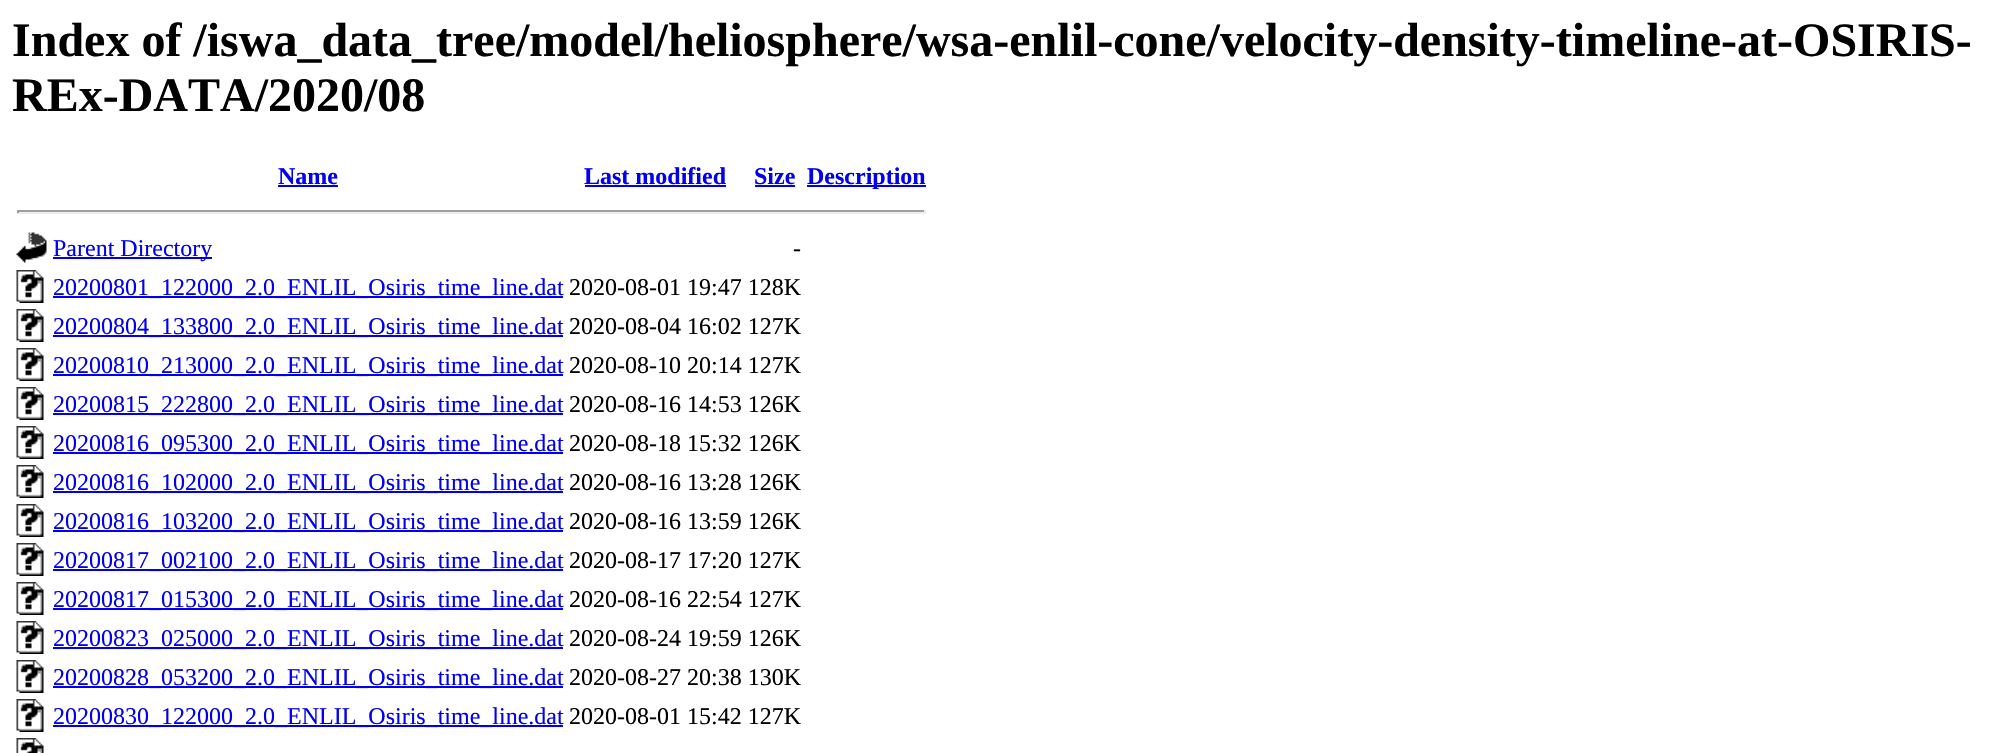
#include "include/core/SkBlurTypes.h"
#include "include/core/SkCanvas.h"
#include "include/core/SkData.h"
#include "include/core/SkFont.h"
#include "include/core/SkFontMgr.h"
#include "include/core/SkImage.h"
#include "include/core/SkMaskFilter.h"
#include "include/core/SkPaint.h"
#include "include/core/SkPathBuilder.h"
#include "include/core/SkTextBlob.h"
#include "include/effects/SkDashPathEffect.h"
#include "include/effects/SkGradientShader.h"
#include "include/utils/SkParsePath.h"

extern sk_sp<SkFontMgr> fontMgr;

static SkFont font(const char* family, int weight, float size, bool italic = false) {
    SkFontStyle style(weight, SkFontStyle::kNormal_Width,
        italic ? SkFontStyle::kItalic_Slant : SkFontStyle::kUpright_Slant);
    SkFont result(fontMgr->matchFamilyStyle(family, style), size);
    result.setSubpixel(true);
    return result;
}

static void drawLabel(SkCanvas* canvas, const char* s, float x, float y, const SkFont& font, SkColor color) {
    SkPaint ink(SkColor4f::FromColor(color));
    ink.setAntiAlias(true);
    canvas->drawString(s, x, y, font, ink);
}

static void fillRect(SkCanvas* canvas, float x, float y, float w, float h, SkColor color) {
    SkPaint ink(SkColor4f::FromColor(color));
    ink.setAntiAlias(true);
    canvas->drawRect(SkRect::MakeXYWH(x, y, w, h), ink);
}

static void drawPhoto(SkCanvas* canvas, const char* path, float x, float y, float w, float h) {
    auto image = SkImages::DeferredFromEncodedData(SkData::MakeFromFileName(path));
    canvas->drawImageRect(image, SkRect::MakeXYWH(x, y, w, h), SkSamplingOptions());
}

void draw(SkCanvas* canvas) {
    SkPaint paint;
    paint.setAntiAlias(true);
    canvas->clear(0xFFFFFFFF);
    SkFont font1 = font("Liberation Serif", 700, 48);
    drawLabel(canvas, "Index of /iswa_data_tree/model/heliosphere/wsa-enlil-cone/velocity-density-timeline-at-OSIRIS-", 12, 56, font1, 0xFF000000);
    drawLabel(canvas, "REx-DATA/2020/08", 12, 111, font1, 0xFF000000);
    SkFont font2 = font("Liberation Serif", 700, 24);
    drawLabel(canvas, "Name", 278, 184, font2, 0xFF0000EE);
    fillRect(canvas, 278, 185, 60, 2, 0xFF0000EE);
    drawLabel(canvas, "Last modified", 584, 184, font2, 0xFF0000EE);
    fillRect(canvas, 585, 185, 141, 2, 0xFF0000EE);
    drawLabel(canvas, "Size", 754, 184, font2, 0xFF0000EE);
    fillRect(canvas, 755, 185, 40, 2, 0xFF0000EE);
    fillRect(canvas, 807, 185, 119, 2, 0xFF0000EE);
    drawLabel(canvas, "Description", 807, 184, font2, 0xFF0000EE);
    fillRect(canvas, 17, 210, 909, 2, 0xFF9F9F9F);
    fillRect(canvas, 924, 210, 2, 3, 0xFFEEEEEE);
    fillRect(canvas, 17, 212, 909, 2, 0xFFEEEEEE);
    fillRect(canvas, 17, 210, 2, 3, 0xFF9F9F9F);
    drawPhoto(canvas, "assets/img1.png", 16, 232, 31, 31);
    fillRect(canvas, 53, 257, 159, 2, 0xFF0000EE);
    SkFont font3 = font("Liberation Serif", 400, 24);
    drawLabel(canvas, "Parent Directory", 53, 256, font3, 0xFF0000EE);
    drawLabel(canvas, "-", 793, 256, font3, 0xFF000000);
    drawPhoto(canvas, "assets/img2.png", 16, 270, 28, 33);
    fillRect(canvas, 53, 296, 510, 2, 0xFF0000EE);
    drawLabel(canvas, "20200801_122000_2.0_ENLIL_Osiris_time_line.dat", 53, 295, font3, 0xFF0000EE);
    drawLabel(canvas, "2020-08-01 19:47 128K", 569, 295, font3, 0xFF000000);
    drawPhoto(canvas, "assets/img2.png", 16, 309, 28, 33);
    fillRect(canvas, 53, 335, 510, 2, 0xFF0000EE);
    drawLabel(canvas, "20200804_133800_2.0_ENLIL_Osiris_time_line.dat", 53, 334, font3, 0xFF0000EE);
    drawLabel(canvas, "2020-08-04 16:02 127K", 569, 334, font3, 0xFF000000);
    drawPhoto(canvas, "assets/img2.png", 16, 348, 28, 33);
    fillRect(canvas, 53, 374, 510, 2, 0xFF0000EE);
    drawLabel(canvas, "20200810_213000_2.0_ENLIL_Osiris_time_line.dat", 53, 373, font3, 0xFF0000EE);
    drawLabel(canvas, "2020-08-10 20:14 127K", 569, 373, font3, 0xFF000000);
    drawPhoto(canvas, "assets/img2.png", 16, 387, 28, 33);
    fillRect(canvas, 53, 413, 510, 2, 0xFF0000EE);
    drawLabel(canvas, "20200815_222800_2.0_ENLIL_Osiris_time_line.dat", 53, 412, font3, 0xFF0000EE);
    drawLabel(canvas, "2020-08-16 14:53 126K", 569, 412, font3, 0xFF000000);
    drawPhoto(canvas, "assets/img2.png", 16, 426, 28, 33);
    fillRect(canvas, 53, 452, 510, 2, 0xFF0000EE);
    drawLabel(canvas, "20200816_095300_2.0_ENLIL_Osiris_time_line.dat", 53, 451, font3, 0xFF0000EE);
    drawLabel(canvas, "2020-08-18 15:32 126K", 569, 451, font3, 0xFF000000);
    drawPhoto(canvas, "assets/img2.png", 16, 465, 28, 33);
    fillRect(canvas, 53, 491, 510, 2, 0xFF0000EE);
    drawLabel(canvas, "20200816_102000_2.0_ENLIL_Osiris_time_line.dat", 53, 490, font3, 0xFF0000EE);
    drawLabel(canvas, "2020-08-16 13:28 126K", 569, 490, font3, 0xFF000000);
    drawPhoto(canvas, "assets/img2.png", 16, 504, 28, 33);
    fillRect(canvas, 53, 530, 510, 2, 0xFF0000EE);
    drawLabel(canvas, "20200816_103200_2.0_ENLIL_Osiris_time_line.dat", 53, 529, font3, 0xFF0000EE);
    drawLabel(canvas, "2020-08-16 13:59 126K", 569, 529, font3, 0xFF000000);
    drawPhoto(canvas, "assets/img2.png", 16, 543, 28, 33);
    fillRect(canvas, 53, 569, 510, 2, 0xFF0000EE);
    drawLabel(canvas, "20200817_002100_2.0_ENLIL_Osiris_time_line.dat", 53, 568, font3, 0xFF0000EE);
    drawLabel(canvas, "2020-08-17 17:20 127K", 569, 568, font3, 0xFF000000);
    drawPhoto(canvas, "assets/img2.png", 16, 582, 28, 33);
    fillRect(canvas, 53, 608, 510, 2, 0xFF0000EE);
    drawLabel(canvas, "20200817_015300_2.0_ENLIL_Osiris_time_line.dat", 53, 607, font3, 0xFF0000EE);
    drawLabel(canvas, "2020-08-16 22:54 127K", 569, 607, font3, 0xFF000000);
    drawPhoto(canvas, "assets/img2.png", 16, 621, 28, 33);
    fillRect(canvas, 53, 647, 510, 2, 0xFF0000EE);
    drawLabel(canvas, "20200823_025000_2.0_ENLIL_Osiris_time_line.dat", 53, 646, font3, 0xFF0000EE);
    drawLabel(canvas, "2020-08-24 19:59 126K", 569, 646, font3, 0xFF000000);
    drawPhoto(canvas, "assets/img2.png", 16, 660, 28, 33);
    fillRect(canvas, 53, 686, 510, 2, 0xFF0000EE);
    drawLabel(canvas, "20200828_053200_2.0_ENLIL_Osiris_time_line.dat", 53, 685, font3, 0xFF0000EE);
    drawLabel(canvas, "2020-08-27 20:38 130K", 569, 685, font3, 0xFF000000);
    drawPhoto(canvas, "assets/img2.png", 16, 699, 28, 33);
    fillRect(canvas, 53, 725, 510, 2, 0xFF0000EE);
    drawLabel(canvas, "20200830_122000_2.0_ENLIL_Osiris_time_line.dat", 53, 724, font3, 0xFF0000EE);
    drawLabel(canvas, "2020-08-01 15:42 127K", 569, 724, font3, 0xFF000000);
    drawPhoto(canvas, "assets/img3.png", 16, 738, 28, 15);
}
